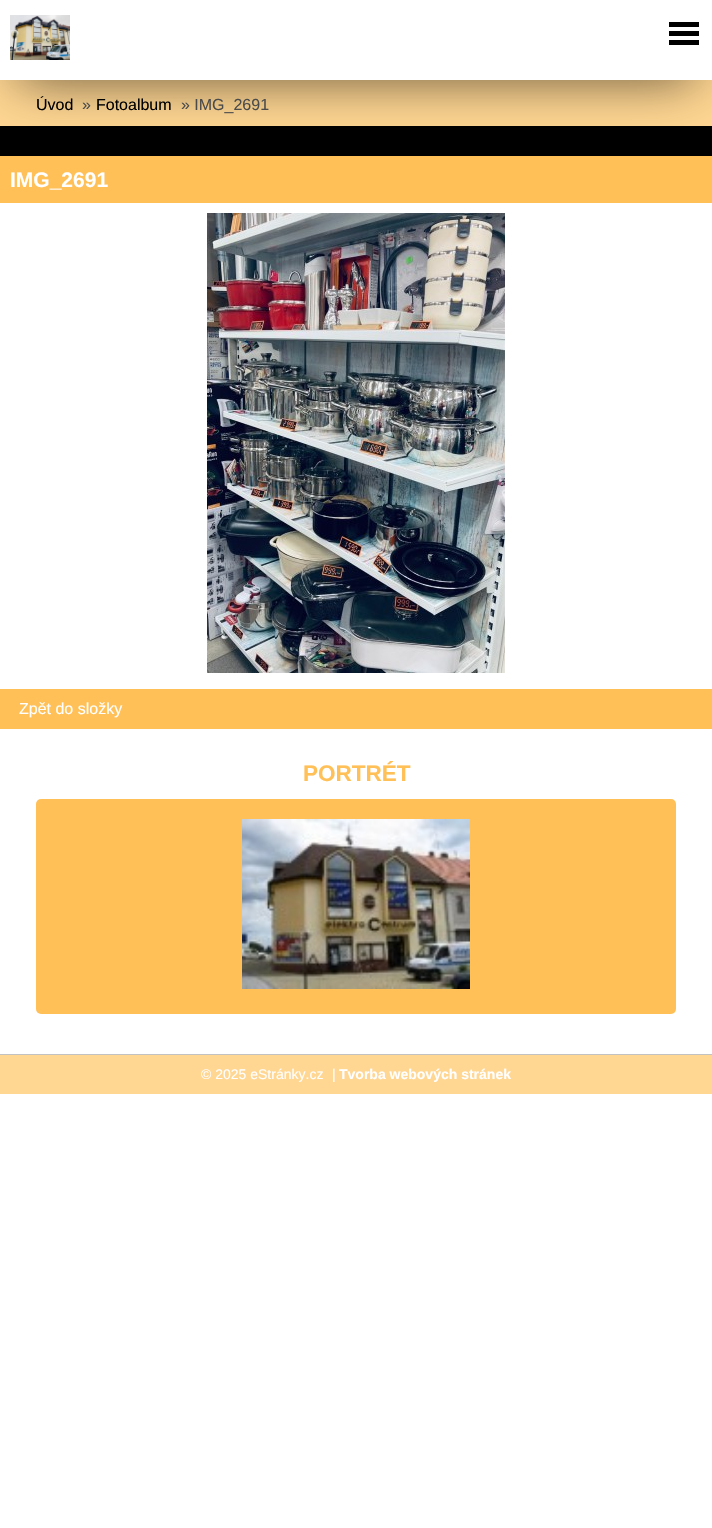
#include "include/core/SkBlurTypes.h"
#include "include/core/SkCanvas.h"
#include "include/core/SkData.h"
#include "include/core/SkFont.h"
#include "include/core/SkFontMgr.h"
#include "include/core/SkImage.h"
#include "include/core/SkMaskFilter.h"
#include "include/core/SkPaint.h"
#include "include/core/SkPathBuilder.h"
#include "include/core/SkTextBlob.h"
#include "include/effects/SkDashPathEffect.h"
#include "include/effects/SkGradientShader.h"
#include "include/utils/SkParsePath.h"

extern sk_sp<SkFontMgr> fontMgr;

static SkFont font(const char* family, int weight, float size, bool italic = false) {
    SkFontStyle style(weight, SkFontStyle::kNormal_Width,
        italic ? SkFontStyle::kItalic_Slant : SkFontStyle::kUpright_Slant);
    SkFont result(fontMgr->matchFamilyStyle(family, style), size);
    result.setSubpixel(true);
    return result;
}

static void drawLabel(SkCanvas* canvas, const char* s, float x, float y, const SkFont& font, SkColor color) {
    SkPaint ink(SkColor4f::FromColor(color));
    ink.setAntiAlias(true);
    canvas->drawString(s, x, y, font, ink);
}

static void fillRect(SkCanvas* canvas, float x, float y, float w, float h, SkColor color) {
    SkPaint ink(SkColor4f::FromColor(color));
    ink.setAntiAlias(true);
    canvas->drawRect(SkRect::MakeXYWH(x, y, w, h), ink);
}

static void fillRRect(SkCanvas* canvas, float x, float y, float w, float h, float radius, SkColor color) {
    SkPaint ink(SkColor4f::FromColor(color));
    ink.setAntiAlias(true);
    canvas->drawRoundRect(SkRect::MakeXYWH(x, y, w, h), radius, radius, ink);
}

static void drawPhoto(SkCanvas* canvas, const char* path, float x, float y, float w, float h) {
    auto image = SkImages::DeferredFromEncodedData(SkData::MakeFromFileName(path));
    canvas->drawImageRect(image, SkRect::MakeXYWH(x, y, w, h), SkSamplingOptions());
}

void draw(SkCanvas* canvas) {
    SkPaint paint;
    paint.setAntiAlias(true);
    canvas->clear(0xFFFFFFFF);
    fillRect(canvas, 0, 80, 712, 46, 0xFFFFD692);
    fillRect(canvas, 0, 126, 712, 30, 0xFF000000);
    fillRect(canvas, 0, 156, 712, 47, 0xFFFFC057);
    canvas->save();
    canvas->clipRect(SkRect::MakeXYWH(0, 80, 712, 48));
    paint.setColor(0xB3000000);
    paint.setMaskFilter(SkMaskFilter::MakeBlur(kNormal_SkBlurStyle, 27));
    canvas->drawRect(SkRect::MakeXYWH(18, 33, 676, 44), paint);
    paint.setMaskFilter(nullptr);
    canvas->restore();
    drawPhoto(canvas, "assets/img1.png", 10, 15, 60, 45);
    fillRect(canvas, 669, 22, 30, 5, 0xFF000000);
    fillRect(canvas, 669, 31, 30, 5, 0xFF000000);
    fillRect(canvas, 669, 40, 30, 5, 0xFF000000);
    SkFont font1 = font("Liberation Sans", 400, 16);
    drawLabel(canvas, "Úvod", 36, 110, font1, 0xFF000000);
    drawLabel(canvas, "»", 82, 110, font1, 0xFF4B4B4B);
    drawLabel(canvas, "Fotoalbum", 96, 110, font1, 0xFF000000);
    drawLabel(canvas, "» IMG_2691", 181, 110, font1, 0xFF4B4B4B);
    SkFont font2 = font("Liberation Sans", 700, 21);
    drawLabel(canvas, "IMG_2691", 10, 187, font2, 0xFFFFFFFF);
    drawPhoto(canvas, "assets/img2.png", 207, 213, 298, 460);
    fillRect(canvas, 0, 689, 712, 40, 0xFFFFC057);
    drawLabel(canvas, "Zpět do složky", 19, 714, font1, 0xFFFFFFFF);
    fillRect(canvas, 0, 1054, 712, 1, 0xFFC2C2C2);
    SkFont font3 = font("Liberation Sans", 700, 22.5f);
    drawLabel(canvas, "PORTRÉT", 303, 781, font3, 0xFFFFC057);
    fillRRect(canvas, 36, 799, 640, 215, 5, 0xFFFFC057);
    drawPhoto(canvas, "assets/img3.png", 242, 819, 228, 170);
    fillRect(canvas, 0, 1055, 712, 39, 0xFFFFD692);
    SkFont font4 = font("Liberation Sans", 400, 14);
    drawLabel(canvas, "© 2025 eStránky.cz", 201, 1079, font4, 0xFFFFFFFF);
    drawLabel(canvas, "|", 332, 1079, font4, 0xFFFFFFFF);
    SkFont font5 = font("Liberation Sans", 700, 14);
    drawLabel(canvas, "Tvorba webových stránek", 339, 1079, font5, 0xFFFFFFFF);
}
